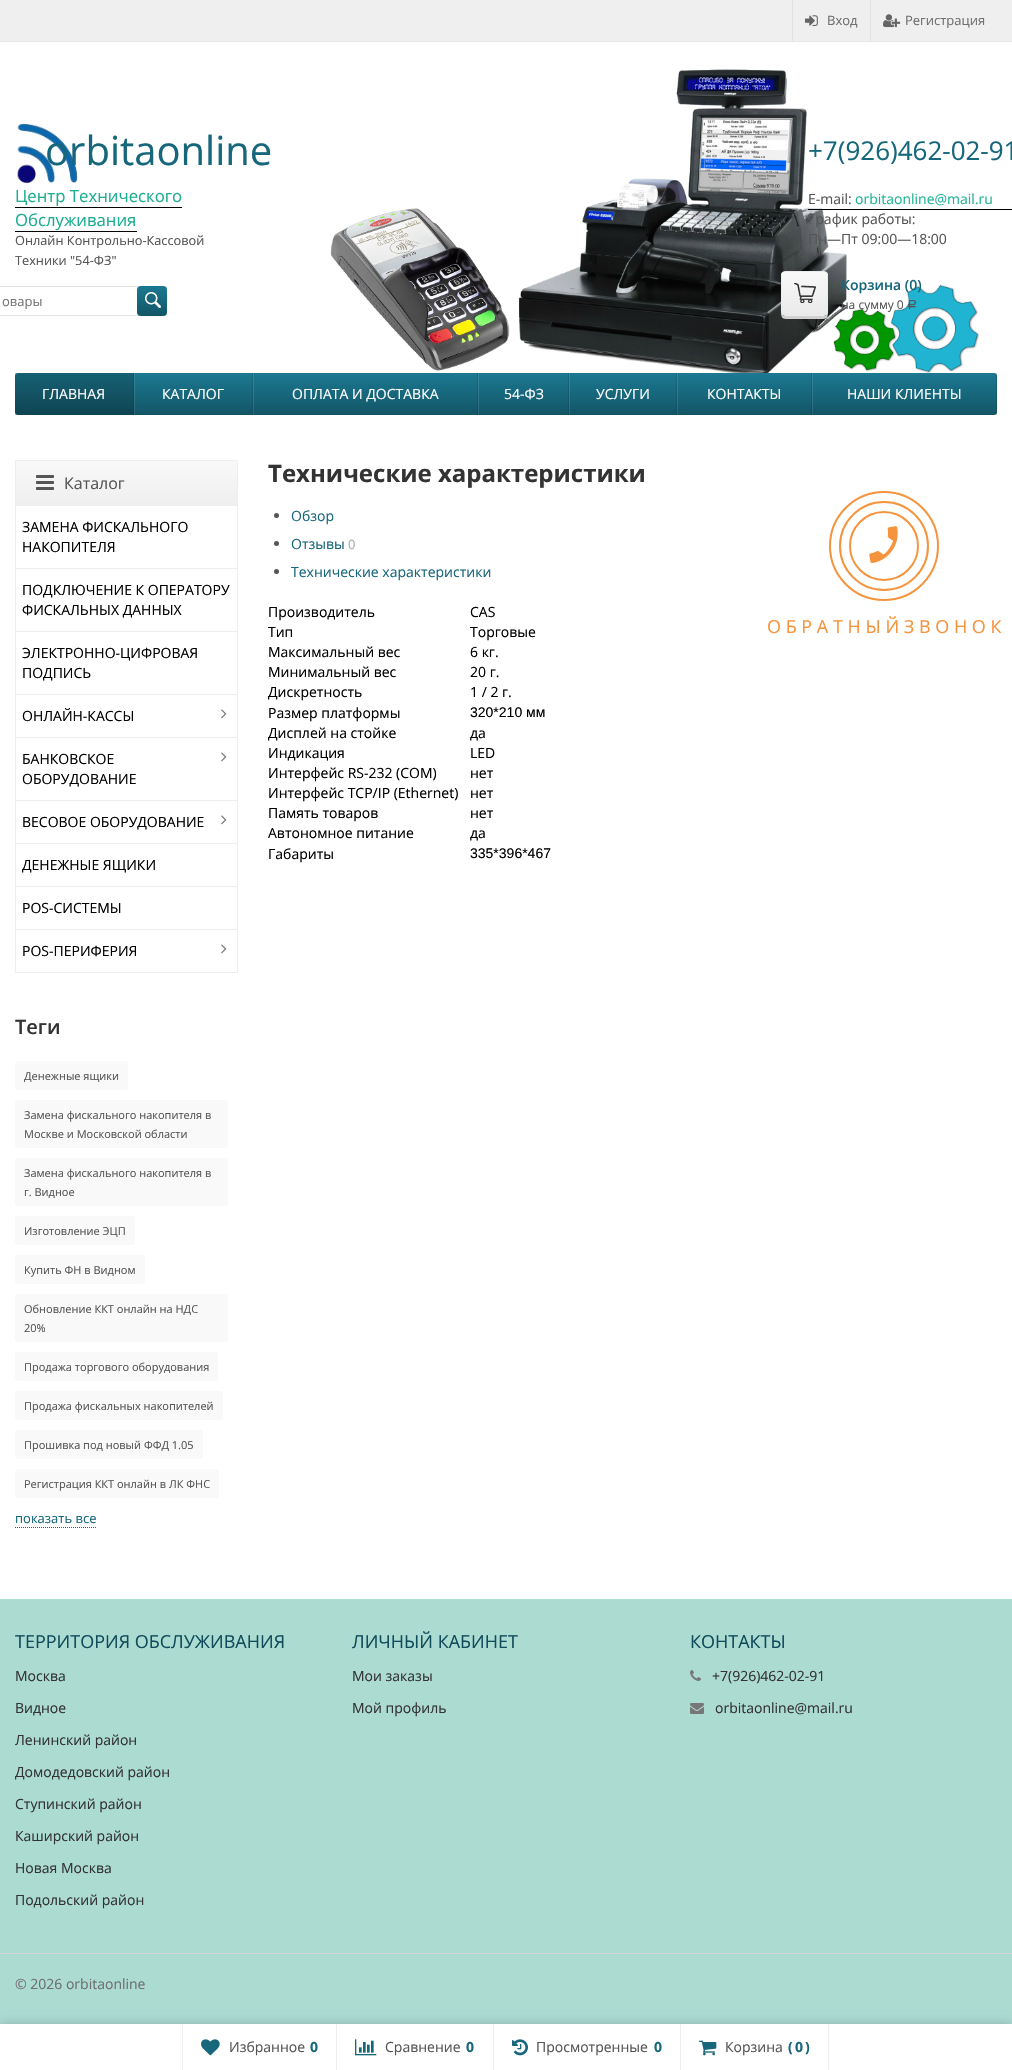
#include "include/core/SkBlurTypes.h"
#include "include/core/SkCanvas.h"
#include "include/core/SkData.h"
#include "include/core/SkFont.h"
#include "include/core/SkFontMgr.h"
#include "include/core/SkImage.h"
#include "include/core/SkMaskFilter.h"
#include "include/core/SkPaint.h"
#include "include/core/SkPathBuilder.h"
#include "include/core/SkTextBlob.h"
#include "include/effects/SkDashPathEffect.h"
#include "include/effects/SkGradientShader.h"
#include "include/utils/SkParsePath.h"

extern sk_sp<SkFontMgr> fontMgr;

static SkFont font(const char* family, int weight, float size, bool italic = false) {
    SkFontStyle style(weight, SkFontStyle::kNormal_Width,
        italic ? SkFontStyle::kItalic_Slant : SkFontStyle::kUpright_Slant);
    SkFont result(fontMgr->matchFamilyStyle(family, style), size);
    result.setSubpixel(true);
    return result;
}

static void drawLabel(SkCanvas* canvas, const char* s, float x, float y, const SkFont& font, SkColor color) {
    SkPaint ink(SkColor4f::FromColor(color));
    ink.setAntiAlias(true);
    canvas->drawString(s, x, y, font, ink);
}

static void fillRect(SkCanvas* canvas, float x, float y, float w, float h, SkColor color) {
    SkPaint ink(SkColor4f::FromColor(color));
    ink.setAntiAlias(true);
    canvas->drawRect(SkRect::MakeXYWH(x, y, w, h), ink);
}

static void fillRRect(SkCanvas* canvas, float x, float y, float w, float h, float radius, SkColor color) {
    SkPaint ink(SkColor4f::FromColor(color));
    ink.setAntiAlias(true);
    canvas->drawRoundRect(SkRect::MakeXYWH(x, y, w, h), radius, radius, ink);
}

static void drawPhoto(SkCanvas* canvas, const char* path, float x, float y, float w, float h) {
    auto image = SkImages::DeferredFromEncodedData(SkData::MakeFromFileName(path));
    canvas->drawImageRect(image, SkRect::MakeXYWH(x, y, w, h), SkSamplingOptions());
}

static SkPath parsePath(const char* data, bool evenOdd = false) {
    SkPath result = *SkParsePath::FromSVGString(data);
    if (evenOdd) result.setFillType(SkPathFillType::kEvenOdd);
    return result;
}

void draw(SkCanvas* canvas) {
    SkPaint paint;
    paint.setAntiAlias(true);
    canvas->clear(0xFFFFFFFF);
    fillRect(canvas, 0, 0, 1012, 42, 0xFFF0EFF0);
    fillRRect(canvas, 0, 41, 1012, 1, 0.5f, 0xFFE6E8EA);
    fillRect(canvas, 792, 0, 1, 41, 0xFFE2E1E2);
    drawPhoto(canvas, "assets/img1.png", 805, 15, 13, 11);
    SkFont font1 = font("Open Sans", 400, 13);
    drawLabel(canvas, "Вход", 827, 25, font1, 0xFF6F6F6F);
    fillRect(canvas, 870, 0, 1, 41, 0xFFE2E1E2);
    drawPhoto(canvas, "assets/img2.png", 883, 14, 18, 14);
    drawLabel(canvas, "Регистрация", 905, 25, font1, 0xFF6F6F6F);
    drawPhoto(canvas, "assets/img3.png", 17, 123, 61, 61);
    SkFont font2 = font("Open Sans", 400, 40);
    drawLabel(canvas, "orbitaonline", 45, 165, font2, 0xFF17677C);
    SkFont font3 = font("Open Sans", 400, 12.75f);
    drawLabel(canvas, "Онлайн Контрольно-Кассовой", 15, 245, font3, 0xFF555555);
    drawLabel(canvas, "Техники \"54-ФЗ\"", 15, 265, font3, 0xFF555555);
    SkFont font4 = font("Open Sans", 400, 16.75f);
    drawLabel(canvas, "Центр Технического", 15, 202, font4, 0xFF1BAD90);
    fillRect(canvas, 15, 207, 167, 1, 0xFF000000);
    drawLabel(canvas, "Обслуживания", 15, 226, font4, 0xFF1BAD90);
    fillRect(canvas, 15, 231, 122, 1, 0xFF000000);
    drawPhoto(canvas, "assets/img4.png", 330, 69, 650, 304);
    SkFont font5 = font("Open Sans", 400, 26);
    drawLabel(canvas, "+7(926)462-02-91", 808, 160, font5, 0xFF17677C);
    fillRect(canvas, 808, 209, 204, 1, 0xFF000000);
    SkFont font6 = font("Open Sans", 400, 14);
    drawLabel(canvas, "E-mail:", 808, 204, font6, 0xFF555555);
    drawLabel(canvas, "orbitaonline@mail.ru", 855, 204, font6, 0xFF21B396);
    drawLabel(canvas, "График работы:", 808, 224, font6, 0xFF555555);
    drawLabel(canvas, "Пн—Пт 09:00—18:00", 808, 244, font6, 0xFF555555);
    paint.setStroke(true);
    paint.setStrokeWidth(1);
    paint.setColor(0xFFE4E4E4);
    canvas->drawRoundRect(SkRect::MakeXYWH(-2.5f, 286.5f, 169, 29), 1.5f, 1.5f, paint);
    drawLabel(canvas, "овары", 2, 306, font1, 0xFF757575);
    paint.setStroke(false);
    {
        const SkColor colors[] = {0xFF1B7992, 0xFF135566};
        const float stops[] = {0, 1};
        const SkPoint ends[] = {{152, 286}, {152, 316}};
        paint.setShader(SkGradientShader::MakeLinear(ends, colors, stops, 2, SkTileMode::kClamp));
        paint.setAlpha(255);
    }
    canvas->drawRoundRect(SkRect::MakeXYWH(137, 286, 30, 30), 4, 4, paint);
    drawPhoto(canvas, "assets/img5.png", 145, 292, 16, 16);
    paint.setShader(nullptr);
    paint.setColor(0xFFD1D1D1);
    canvas->drawPath(parsePath("M781 312C781 320 784 319 792 319H818C825 319 828 320 828 312C828 314 826 316 824 316H785C783 316 781 314 781 312Z"), paint);
    canvas->save();
    canvas->clipPath(parsePath("M785 271H824C826 271 828 273 828 275V312C828 314 826 316 824 316H785C783 316 781 314 781 312V275C781 273 783 271 785 271Z"), true);
    {
        const SkColor colors[] = {0xFFF9F8F9, 0xFFEAEAEA};
        const float stops[] = {0, 1};
        const SkPoint ends[] = {{805, 272}, {805, 315}};
        paint.setShader(SkGradientShader::MakeLinear(ends, colors, stops, 2, SkTileMode::kClamp));
        paint.setAlpha(255);
    }
    canvas->drawRect(SkRect::MakeXYWH(781, 272, 47, 43), paint);
    canvas->restore();
    paint.setStroke(true);
    paint.setShader(nullptr);
    paint.setColor(0xFFECECEC);
    canvas->drawRoundRect(SkRect::MakeXYWH(781.5f, 271.5f, 46, 44), 3.5f, 3.5f, paint);
    drawPhoto(canvas, "assets/img6.png", 794, 283, 22, 20);
    SkFont font7 = font("Open Sans", 600, 14);
    drawLabel(canvas, "Корзина (0)", 841, 290, font7, 0xFF17677C);
    SkFont font8 = font("Open Sans", 400, 12);
    drawLabel(canvas, "на сумму 0", 841, 309, font8, 0xFF555555);
    SkFont font9 = font("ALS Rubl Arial", 400, 13);
    drawLabel(canvas, "Р", 907, 309, font9, 0xFF555555);
    paint.setStroke(false);
    {
        const SkColor colors[] = {0xFF1B7992, 0xFF135566};
        const float stops[] = {0, 1};
        const SkPoint ends[] = {{506, 373}, {506, 415}};
        paint.setShader(SkGradientShader::MakeLinear(ends, colors, stops, 2, SkTileMode::kClamp));
        paint.setAlpha(255);
    }
    canvas->drawRoundRect(SkRect::MakeXYWH(15, 373, 982, 42), 3, 3, paint);
    {
        const SkColor colors[] = {0xFF36899F, 0xFF2F6978};
        const float stops[] = {0, 1};
        const SkPoint ends[] = {{506, 373}, {506, 415}};
        paint.setShader(SkGradientShader::MakeLinear(ends, colors, stops, 2, SkTileMode::kClamp));
        paint.setAlpha(255);
    }
    canvas->drawRect(SkRect::MakeXYWH(812, 373, 1, 42), paint);
    canvas->drawRect(SkRect::MakeXYWH(677, 373, 1, 42), paint);
    {
        const SkColor colors[] = {0xFF186A80, 0xFF114B5A};
        const float stops[] = {0, 1};
        const SkPoint ends[] = {{506, 373}, {506, 415}};
        paint.setShader(SkGradientShader::MakeLinear(ends, colors, stops, 2, SkTileMode::kClamp));
        paint.setAlpha(255);
    }
    canvas->drawRect(SkRect::MakeXYWH(811, 373, 1, 42), paint);
    {
        const SkColor colors[] = {0xFF36899F, 0xFF2F6978};
        const float stops[] = {0, 1};
        const SkPoint ends[] = {{506, 373}, {506, 415}};
        paint.setShader(SkGradientShader::MakeLinear(ends, colors, stops, 2, SkTileMode::kClamp));
        paint.setAlpha(255);
    }
    canvas->drawRect(SkRect::MakeXYWH(569, 373, 1, 42), paint);
    {
        const SkColor colors[] = {0xFF186A80, 0xFF114B5A};
        const float stops[] = {0, 1};
        const SkPoint ends[] = {{506, 373}, {506, 415}};
        paint.setShader(SkGradientShader::MakeLinear(ends, colors, stops, 2, SkTileMode::kClamp));
        paint.setAlpha(255);
    }
    canvas->drawRect(SkRect::MakeXYWH(676, 373, 1, 42), paint);
    {
        const SkColor colors[] = {0xFF36899F, 0xFF2F6978};
        const float stops[] = {0, 1};
        const SkPoint ends[] = {{506, 373}, {506, 415}};
        paint.setShader(SkGradientShader::MakeLinear(ends, colors, stops, 2, SkTileMode::kClamp));
        paint.setAlpha(255);
    }
    canvas->drawRect(SkRect::MakeXYWH(478, 373, 1, 42), paint);
    {
        const SkColor colors[] = {0xFF186A80, 0xFF114B5A};
        const float stops[] = {0, 1};
        const SkPoint ends[] = {{506, 373}, {506, 415}};
        paint.setShader(SkGradientShader::MakeLinear(ends, colors, stops, 2, SkTileMode::kClamp));
        paint.setAlpha(255);
    }
    canvas->drawRect(SkRect::MakeXYWH(568, 373, 1, 42), paint);
    {
        const SkColor colors[] = {0xFF36899F, 0xFF2F6978};
        const float stops[] = {0, 1};
        const SkPoint ends[] = {{506, 373}, {506, 415}};
        paint.setShader(SkGradientShader::MakeLinear(ends, colors, stops, 2, SkTileMode::kClamp));
        paint.setAlpha(255);
    }
    canvas->drawRect(SkRect::MakeXYWH(253, 373, 1, 42), paint);
    {
        const SkColor colors[] = {0xFF186A80, 0xFF114B5A};
        const float stops[] = {0, 1};
        const SkPoint ends[] = {{506, 373}, {506, 415}};
        paint.setShader(SkGradientShader::MakeLinear(ends, colors, stops, 2, SkTileMode::kClamp));
        paint.setAlpha(255);
    }
    canvas->drawRect(SkRect::MakeXYWH(477, 373, 1, 42), paint);
    {
        const SkColor colors[] = {0xFF36899F, 0xFF2F6978};
        const float stops[] = {0, 1};
        const SkPoint ends[] = {{506, 373}, {506, 415}};
        paint.setShader(SkGradientShader::MakeLinear(ends, colors, stops, 2, SkTileMode::kClamp));
        paint.setAlpha(255);
    }
    canvas->drawRect(SkRect::MakeXYWH(134, 373, 1, 42), paint);
    {
        const SkColor colors[] = {0xFF186A80, 0xFF114B5A};
        const float stops[] = {0, 1};
        const SkPoint ends[] = {{506, 373}, {506, 415}};
        paint.setShader(SkGradientShader::MakeLinear(ends, colors, stops, 2, SkTileMode::kClamp));
        paint.setAlpha(255);
    }
    canvas->drawRect(SkRect::MakeXYWH(252, 373, 1, 42), paint);
    fillRect(canvas, 15, 373, 119, 42, 0x33000000);
    fillRect(canvas, 133, 373, 1, 42, 0x1F000000);
    drawLabel(canvas, "ГЛАВНАЯ", 42, 399, font6, 0xFFFFFFFF);
    drawLabel(canvas, "КАТАЛОГ", 162, 399, font6, 0xFFFFFFFF);
    drawLabel(canvas, "ОПЛАТА И ДОСТАВКА", 292, 399, font6, 0xFFFFFFFF);
    drawLabel(canvas, "54-ФЗ", 504, 399, font6, 0xFFFFFFFF);
    drawLabel(canvas, "УСЛУГИ", 596, 399, font6, 0xFFFFFFFF);
    drawLabel(canvas, "КОНТАКТЫ", 707, 399, font6, 0xFFFFFFFF);
    fillRect(canvas, 996, 373, 1, 42, 0x1F000000);
    drawLabel(canvas, "НАШИ КЛИЕНТЫ", 847, 399, font6, 0xFFFFFFFF);
    paint.setStroke(true);
    paint.setShader(nullptr);
    paint.setColor(0xFFEEEEEE);
    canvas->drawRect(SkRect::MakeXYWH(15.5f, 460.5f, 222, 512), paint);
    paint.setStroke(false);
    {
        const SkColor colors[] = {0xFFF9F8F8, 0xFFF0EFF0};
        const float stops[] = {0, 1};
        const SkPoint ends[] = {{127, 461}, {127, 506}};
        paint.setShader(SkGradientShader::MakeLinear(ends, colors, stops, 2, SkTileMode::kClamp));
        paint.setAlpha(255);
    }
    canvas->drawRect(SkRect::MakeXYWH(16, 461, 221, 45), paint);
    drawPhoto(canvas, "assets/img7.png", 36, 475, 18, 15);
    SkFont font10 = font("Open Sans", 400, 16);
    drawLabel(canvas, "Каталог", 64, 489, font10, 0xFF555555);
    drawLabel(canvas, "ЗАМЕНА ФИСКАЛЬНОГО", 22, 532, font6, 0xFF000000);
    drawLabel(canvas, "НАКОПИТЕЛЯ", 22, 552, font6, 0xFF000000);
    fillRect(canvas, 16, 568, 221, 1, 0xFFEEEEEE);
    drawLabel(canvas, "ПОДКЛЮЧЕНИЕ К ОПЕРАТОРУ", 22, 595, font6, 0xFF000000);
    drawLabel(canvas, "ФИСКАЛЬНЫХ ДАННЫХ", 22, 615, font6, 0xFF000000);
    fillRect(canvas, 16, 631, 221, 1, 0xFFEEEEEE);
    drawLabel(canvas, "ЭЛЕКТРОННО-ЦИФРОВАЯ", 22, 658, font6, 0xFF000000);
    drawLabel(canvas, "ПОДПИСЬ", 22, 678, font6, 0xFF000000);
    fillRect(canvas, 16, 694, 221, 1, 0xFFEEEEEE);
    drawLabel(canvas, "ОНЛАЙН-КАССЫ", 22, 721, font6, 0xFF000000);
    drawPhoto(canvas, "assets/img8.png", 221, 709, 6, 10);
    fillRect(canvas, 16, 737, 221, 1, 0xFFEEEEEE);
    drawLabel(canvas, "БАНКОВСКОЕ", 22, 764, font6, 0xFF000000);
    drawLabel(canvas, "ОБОРУДОВАНИЕ", 22, 784, font6, 0xFF000000);
    drawPhoto(canvas, "assets/img8.png", 221, 752, 6, 10);
    fillRect(canvas, 16, 800, 221, 1, 0xFFEEEEEE);
    drawLabel(canvas, "ВЕСОВОЕ ОБОРУДОВАНИЕ", 22, 827, font6, 0xFF000000);
    drawPhoto(canvas, "assets/img8.png", 221, 815, 6, 10);
    fillRect(canvas, 16, 843, 221, 1, 0xFFEEEEEE);
    drawLabel(canvas, "ДЕНЕЖНЫЕ ЯЩИКИ", 22, 870, font6, 0xFF000000);
    fillRect(canvas, 16, 886, 221, 1, 0xFFEEEEEE);
    drawLabel(canvas, "POS-СИСТЕМЫ", 22, 913, font6, 0xFF000000);
    fillRect(canvas, 16, 929, 221, 1, 0xFFEEEEEE);
    drawLabel(canvas, "POS-ПЕРИФЕРИЯ", 22, 956, font6, 0xFF000000);
    drawPhoto(canvas, "assets/img8.png", 221, 944, 6, 10);
    SkFont font11 = font("Open Sans", 600, 20);
    drawLabel(canvas, "Теги", 15, 1034, font11, 0xFF333333);
    fillRRect(canvas, 15, 1061, 113, 29, 3, 0xFFF9F9F9);
    SkFont font12 = font("Open Sans", 400, 11);
    drawLabel(canvas, "Денежные ящики", 24, 1080, font12, 0xFF555555);
    fillRRect(canvas, 15, 1100, 213, 48, 3, 0xFFF9F9F9);
    drawLabel(canvas, "Замена фискального накопителя в", 24, 1119, font12, 0xFF555555);
    drawLabel(canvas, "Москве и Московской области", 24, 1138, font12, 0xFF555555);
    fillRRect(canvas, 15, 1158, 213, 48, 3, 0xFFF9F9F9);
    drawLabel(canvas, "Замена фискального накопителя в", 24, 1177, font12, 0xFF555555);
    drawLabel(canvas, "г. Видное", 24, 1196, font12, 0xFF555555);
    fillRRect(canvas, 15, 1216, 120, 29, 3, 0xFFF9F9F9);
    drawLabel(canvas, "Изготовление ЭЦП", 24, 1235, font12, 0xFF555555);
    fillRRect(canvas, 15, 1255, 130, 29, 3, 0xFFF9F9F9);
    drawLabel(canvas, "Купить ФН в Видном", 24, 1274, font12, 0xFF555555);
    fillRRect(canvas, 15, 1294, 213, 48, 3, 0xFFF9F9F9);
    drawLabel(canvas, "Обновление ККТ онлайн на НДС", 24, 1313, font12, 0xFF555555);
    drawLabel(canvas, "20%", 24, 1332, font12, 0xFF555555);
    fillRRect(canvas, 15, 1352, 203, 29, 3, 0xFFF9F9F9);
    drawLabel(canvas, "Продажа торгового оборудования", 24, 1371, font12, 0xFF555555);
    fillRRect(canvas, 15, 1391, 208, 29, 3, 0xFFF9F9F9);
    drawLabel(canvas, "Продажа фискальных накопителей", 24, 1410, font12, 0xFF555555);
    fillRRect(canvas, 15, 1430, 188, 29, 3, 0xFFF9F9F9);
    drawLabel(canvas, "Прошивка под новый ФФД 1.05", 24, 1449, font12, 0xFF555555);
    fillRRect(canvas, 15, 1469, 204, 29, 3, 0xFFF9F9F9);
    drawLabel(canvas, "Регистрация ККТ онлайн в ЛК ФНС", 24, 1488, font12, 0xFF555555);
    drawLabel(canvas, "показать все", 15, 1523, font1, 0xFF17677C);
    paint.setStroke(true);
    paint.setShader(nullptr);
    paint.setColor(0xFF17677C);
    paint.setPathEffect(SkDashPathEffect::Make({{1, 1}}, 0));
    canvas->drawPath(parsePath("M15 1527.5H97"), paint);
    paint.setPathEffect(nullptr);
    SkFont font13 = font("Open Sans", 700, 24);
    drawLabel(canvas, "Технические характеристики", 268, 482, font13, 0xFF333333);
    paint.setStroke(false);
    paint.setColor(0xFF555555);
    canvas->drawCircle(276.5f, 515.5f, 2.5f, paint);
    drawLabel(canvas, "Обзор", 291, 521, font6, 0xFF17677C);
    canvas->drawCircle(276.5f, 543.5f, 2.5f, paint);
    drawLabel(canvas, "Отзывы", 291, 549, font6, 0xFF17677C);
    drawLabel(canvas, "0", 348, 549, font1, 0xFFAAAAAA);
    canvas->drawCircle(276.5f, 571.5f, 2.5f, paint);
    drawLabel(canvas, "Технические характеристики", 291, 577, font6, 0xFF17677C);
    drawLabel(canvas, "Производитель", 268, 617, font6, 0xFF000000);
    drawLabel(canvas, "CAS", 470, 617, font6, 0xFF000000);
    drawLabel(canvas, "Тип", 268, 637, font6, 0xFF000000);
    drawLabel(canvas, "Торговые", 470, 637, font6, 0xFF000000);
    drawLabel(canvas, "Максимальный вес", 268, 657, font6, 0xFF000000);
    drawLabel(canvas, "6 кг.", 470, 657, font6, 0xFF000000);
    drawLabel(canvas, "Минимальный вес", 268, 677, font6, 0xFF000000);
    drawLabel(canvas, "20 г.", 470, 677, font6, 0xFF000000);
    drawLabel(canvas, "Дискретность", 268, 697, font6, 0xFF000000);
    drawLabel(canvas, "1 / 2 г.", 470, 697, font6, 0xFF000000);
    drawLabel(canvas, "Размер платформы", 268, 718, font6, 0xFF000000);
    SkFont font14 = font("Liberation Sans", 400, 14);
    drawLabel(canvas, "320*210 мм", 470, 717, font14, 0xFF000000);
    drawLabel(canvas, "Дисплей на стойке", 268, 738, font6, 0xFF000000);
    drawLabel(canvas, "да", 470, 738, font6, 0xFF000000);
    drawLabel(canvas, "Индикация", 268, 758, font6, 0xFF000000);
    drawLabel(canvas, "LED", 470, 758, font6, 0xFF000000);
    drawLabel(canvas, "Интерфейс RS-232 (COM)", 268, 778, font6, 0xFF000000);
    drawLabel(canvas, "нет", 470, 778, font6, 0xFF000000);
    drawLabel(canvas, "Интерфейс TCP/IP (Ethernet)", 268, 798, font6, 0xFF000000);
    drawLabel(canvas, "нет", 470, 798, font6, 0xFF000000);
    drawLabel(canvas, "Память товаров", 268, 818, font6, 0xFF000000);
    drawLabel(canvas, "нет", 470, 818, font6, 0xFF000000);
    drawLabel(canvas, "Автономное питание", 268, 838, font6, 0xFF000000);
    drawLabel(canvas, "да", 470, 838, font6, 0xFF000000);
    drawLabel(canvas, "Габариты", 268, 859, font6, 0xFF000000);
    drawLabel(canvas, "335*396*467", 470, 858, font14, 0xFF000000);
    fillRect(canvas, 0, 1599, 1012, 425, 0xFFACDBD2);
    SkFont font15 = font("Open Sans", 400, 18);
    drawLabel(canvas, "ТЕРРИТОРИЯ ОБСЛУЖИВАНИЯ", 15, 1648, font15, 0xFF114C5C);
    drawLabel(canvas, "Москва", 15, 1681, font6, 0xFF333333);
    drawLabel(canvas, "Видное", 15, 1713, font6, 0xFF333333);
    drawLabel(canvas, "Ленинский район", 15, 1745, font6, 0xFF333333);
    drawLabel(canvas, "Домодедовский район", 15, 1777, font6, 0xFF333333);
    drawLabel(canvas, "Ступинский район", 15, 1809, font6, 0xFF333333);
    drawLabel(canvas, "Каширский район", 15, 1841, font6, 0xFF333333);
    drawLabel(canvas, "Новая Москва", 15, 1873, font6, 0xFF333333);
    drawLabel(canvas, "Подольский район", 15, 1905, font6, 0xFF333333);
    drawLabel(canvas, "ЛИЧНЫЙ КАБИНЕТ", 352, 1648, font15, 0xFF114C5C);
    drawLabel(canvas, "Мои заказы", 352, 1681, font6, 0xFF333333);
    drawLabel(canvas, "Мой профиль", 352, 1713, font6, 0xFF333333);
    drawLabel(canvas, "КОНТАКТЫ", 690, 1648, font15, 0xFF114C5C);
    drawPhoto(canvas, "assets/img9.png", 690, 1670, 11, 11);
    drawLabel(canvas, "+7(926)462-02-91", 712, 1681, font6, 0xFF333333);
    drawPhoto(canvas, "assets/img10.png", 690, 1703, 14, 11);
    drawLabel(canvas, "orbitaonline@mail.ru", 715, 1713, font6, 0xFF333333);
    fillRect(canvas, 0, 1953, 1012, 1, 0xFFD5D5D5);
    drawLabel(canvas, "© 2026 orbitaonline", 15, 1989, font6, 0xFF6F6F6F);
    paint.setColor(0x33000000);
    paint.setMaskFilter(SkMaskFilter::MakeBlur(kNormal_SkBlurStyle, 5));
    canvas->drawRect(SkRect::MakeXYWH(0, 2024, 1012, 46), paint);
    paint.setMaskFilter(nullptr);
    fillRect(canvas, 0, 2024, 1012, 46, 0xFFFFFFFF);
    fillRect(canvas, 182, 2024, 1, 46, 0xFFEEEEEE);
    drawPhoto(canvas, "assets/img11.png", 201, 2039, 19, 17);
    drawLabel(canvas, "Избранное", 229, 2052, font6, 0xFF555555);
    SkFont font16 = font("Open Sans", 700, 14);
    drawLabel(canvas, "0", 310, 2052, font16, 0xFF17677C);
    fillRect(canvas, 336, 2024, 1, 46, 0xFFEEEEEE);
    drawPhoto(canvas, "assets/img12.png", 355, 2039, 22, 17);
    drawLabel(canvas, "Сравнение", 385, 2052, font6, 0xFF555555);
    drawLabel(canvas, "0", 466, 2052, font16, 0xFF17677C);
    fillRect(canvas, 493, 2024, 1, 46, 0xFFEEEEEE);
    drawPhoto(canvas, "assets/img13.png", 512, 2039, 16, 17);
    drawLabel(canvas, "Просмотренные", 536, 2052, font6, 0xFF555555);
    drawLabel(canvas, "0", 654, 2052, font16, 0xFF17677C);
    fillRect(canvas, 828, 2024, 1, 46, 0xFFEEEEEE);
    fillRect(canvas, 680, 2024, 1, 46, 0xFFEEEEEE);
    drawPhoto(canvas, "assets/img14.png", 699, 2040, 18, 16);
    drawLabel(canvas, "Корзина", 725, 2052, font6, 0xFF555555);
    drawLabel(canvas, "(", 788, 2052, font16, 0xFF17677C);
    drawLabel(canvas, "0", 795, 2052, font16, 0xFF17677C);
    drawLabel(canvas, ")", 805, 2052, font16, 0xFF17677C);
    drawPhoto(canvas, "assets/img15.png", 869, 526, 29, 38);
    paint.setStroke(true);
    paint.setStrokeWidth(2);
    paint.setColor(0xFFF5943D);
    canvas->drawCircle(884, 546, 54, paint);
    canvas->drawCircle(884, 546, 44, paint);
    canvas->drawCircle(884, 546, 34, paint);
    drawLabel(canvas, "О Б Р А Т Н Ы Й З В О Н О К", 767, 633, font15, 0xFFF5943D);
}
